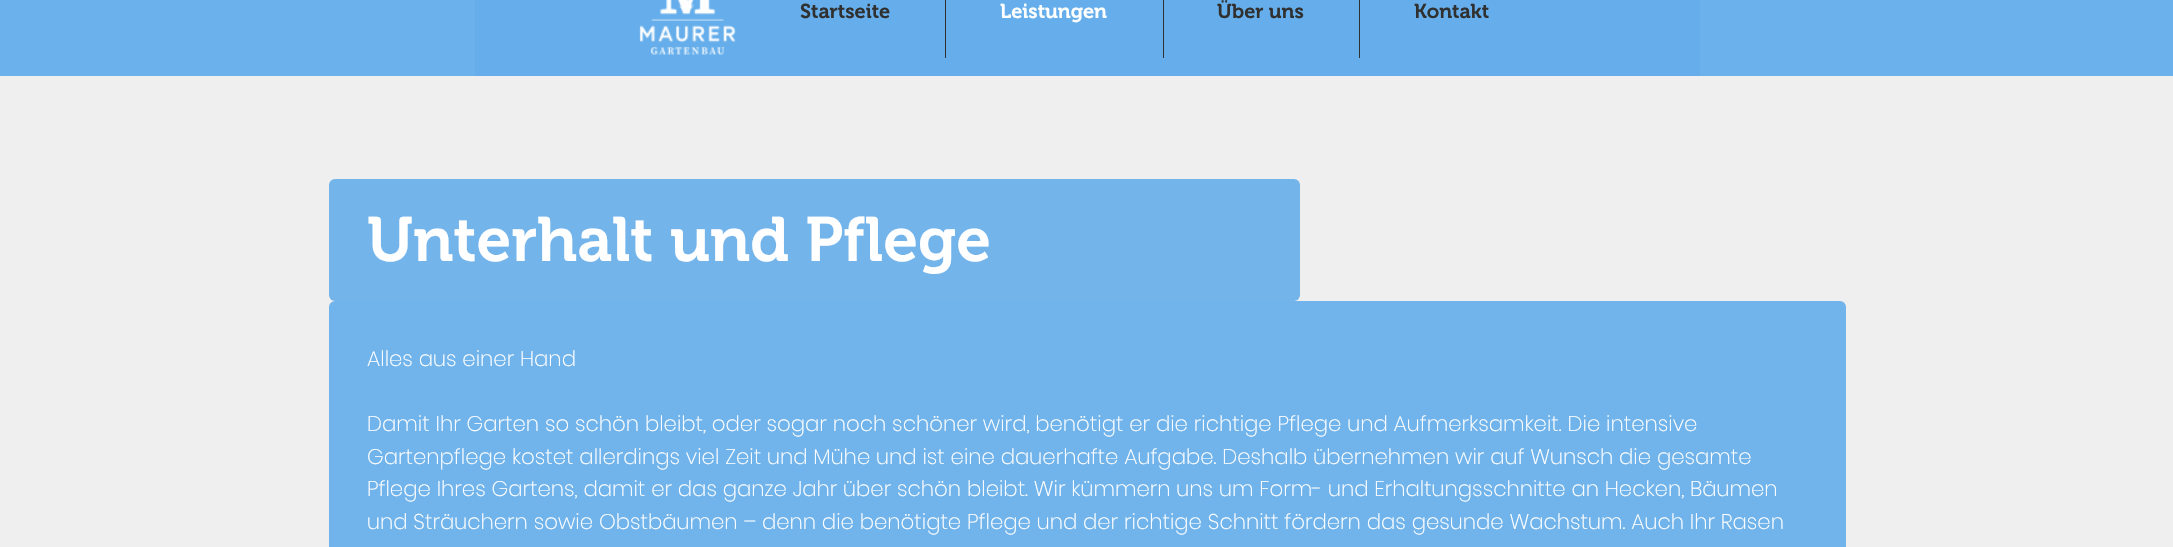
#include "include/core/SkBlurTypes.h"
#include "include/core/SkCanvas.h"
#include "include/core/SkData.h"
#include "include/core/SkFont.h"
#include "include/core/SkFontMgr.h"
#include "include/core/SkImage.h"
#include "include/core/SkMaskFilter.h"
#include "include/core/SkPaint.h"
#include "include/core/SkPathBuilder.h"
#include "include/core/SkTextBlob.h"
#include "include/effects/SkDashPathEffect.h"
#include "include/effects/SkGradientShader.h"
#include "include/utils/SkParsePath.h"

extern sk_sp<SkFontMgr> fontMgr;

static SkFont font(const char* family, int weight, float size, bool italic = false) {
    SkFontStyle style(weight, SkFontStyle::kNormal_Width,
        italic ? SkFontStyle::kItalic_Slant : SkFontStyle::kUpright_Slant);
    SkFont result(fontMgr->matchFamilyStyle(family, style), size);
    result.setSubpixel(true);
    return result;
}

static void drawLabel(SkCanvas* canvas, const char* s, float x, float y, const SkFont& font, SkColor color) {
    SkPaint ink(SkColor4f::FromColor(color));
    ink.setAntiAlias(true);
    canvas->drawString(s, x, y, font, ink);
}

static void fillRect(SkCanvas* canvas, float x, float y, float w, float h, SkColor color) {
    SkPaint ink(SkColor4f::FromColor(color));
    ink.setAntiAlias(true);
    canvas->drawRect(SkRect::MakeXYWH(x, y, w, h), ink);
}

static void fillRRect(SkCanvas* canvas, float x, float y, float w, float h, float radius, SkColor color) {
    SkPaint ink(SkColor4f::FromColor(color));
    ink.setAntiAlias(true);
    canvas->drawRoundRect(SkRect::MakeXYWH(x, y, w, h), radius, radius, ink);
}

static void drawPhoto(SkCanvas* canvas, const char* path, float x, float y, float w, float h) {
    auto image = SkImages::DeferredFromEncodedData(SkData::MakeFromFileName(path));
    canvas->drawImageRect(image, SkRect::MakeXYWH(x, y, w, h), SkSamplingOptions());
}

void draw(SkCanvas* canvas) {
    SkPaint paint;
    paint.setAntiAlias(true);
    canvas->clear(0xFFEFEFEF);
    fillRect(canvas, 0, 0, 2173, 76, 0xFF6BB1EB);
    fillRect(canvas, 475, 0, 1225, 76, 0xFF65AEEB);
    drawPhoto(canvas, "assets/img1.png", 639, 0, 97, 56);
    SkFont font1 = font("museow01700", 600, 20);
    drawLabel(canvas, "Startseite", 800, 18, font1, 0xFF303030);
    fillRect(canvas, 945, 0, 1, 58, 0xFF303030);
    drawLabel(canvas, "Leistungen", 1000, 18, font1, 0xFFFFFFFF);
    fillRect(canvas, 1163, 0, 1, 58, 0xFF303030);
    drawLabel(canvas, "Über uns", 1217, 18, font1, 0xFF303030);
    fillRect(canvas, 1359, 0, 1, 58, 0xFF303030);
    drawLabel(canvas, "Kontakt", 1414, 18, font1, 0xFF303030);
    fillRRect(canvas, 329, 179, 971, 122, 6, 0xFF73B4EB);
    SkFont font2 = font("museow01700", 600, 62.5f);
    drawLabel(canvas, "Unterhalt und Pflege", 367, 261, font2, 0xFFFFFFFF);
    fillRRect(canvas, 329, 301, 1517, 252, 6, 0xFF71B4EB);
    SkFont font3 = font("Poppins", 200, 21.25f);
    drawLabel(canvas, "Alles aus einer Hand", 367, 366, font3, 0xFFFFFFFF);
    drawLabel(canvas, "Damit Ihr Garten so schön bleibt, oder sogar noch schöner wird, benötigt er die richtige Pflege und Aufmerksamkeit. Die intensive", 367, 431, font3, 0xFFFFFFFF);
    drawLabel(canvas, "Gartenpflege kostet allerdings viel Zeit und Mühe und ist eine dauerhafte Aufgabe. Deshalb übernehmen wir auf Wunsch die gesamte", 367, 464, font3, 0xFFFFFFFF);
    drawLabel(canvas, "Pflege Ihres Gartens, damit er das ganze Jahr über schön bleibt. Wir kümmern uns um Form- und Erhaltungsschnitte an Hecken, Bäumen", 367, 496, font3, 0xFFFFFFFF);
    drawLabel(canvas, "und Sträuchern sowie Obstbäumen – denn die benötigte Pflege und der richtige Schnitt fördern das gesunde Wachstum. Auch Ihr Rasen", 367, 529, font3, 0xFFFFFFFF);
}
